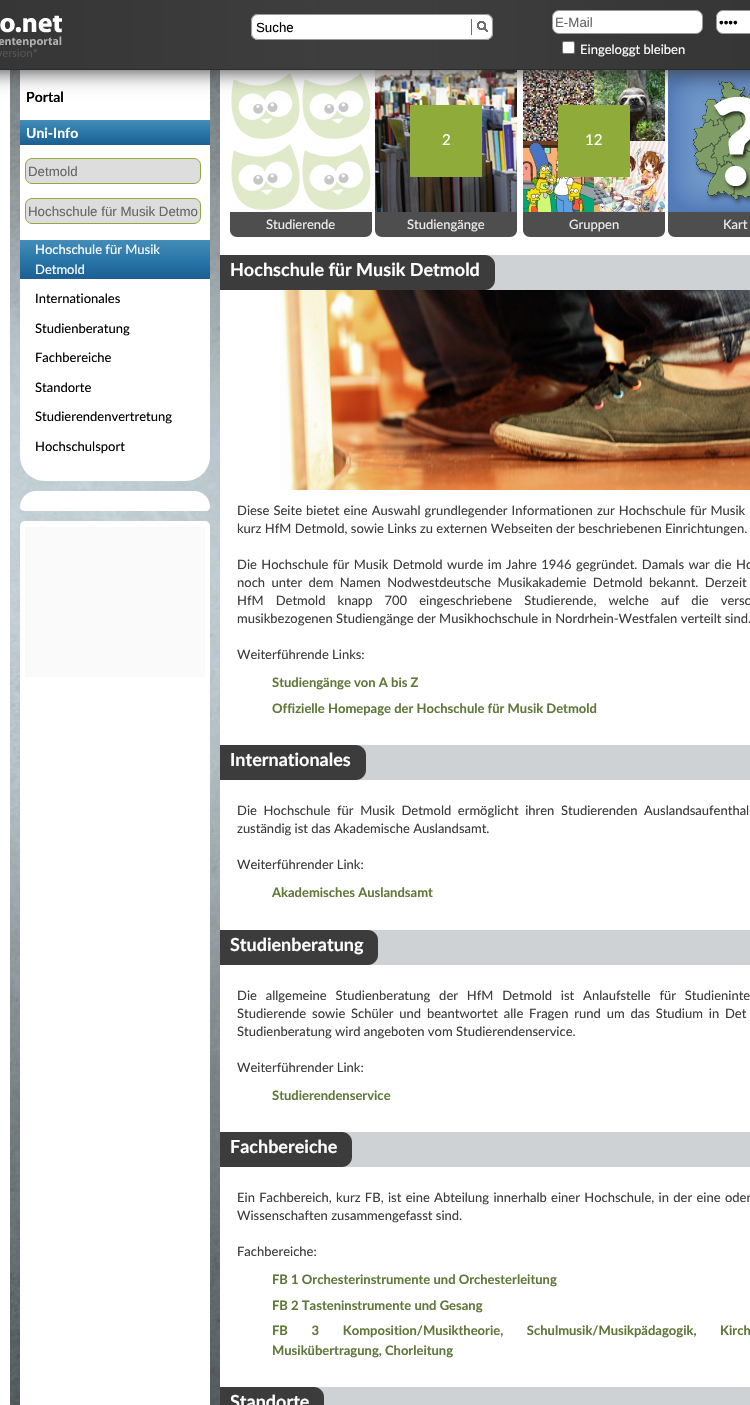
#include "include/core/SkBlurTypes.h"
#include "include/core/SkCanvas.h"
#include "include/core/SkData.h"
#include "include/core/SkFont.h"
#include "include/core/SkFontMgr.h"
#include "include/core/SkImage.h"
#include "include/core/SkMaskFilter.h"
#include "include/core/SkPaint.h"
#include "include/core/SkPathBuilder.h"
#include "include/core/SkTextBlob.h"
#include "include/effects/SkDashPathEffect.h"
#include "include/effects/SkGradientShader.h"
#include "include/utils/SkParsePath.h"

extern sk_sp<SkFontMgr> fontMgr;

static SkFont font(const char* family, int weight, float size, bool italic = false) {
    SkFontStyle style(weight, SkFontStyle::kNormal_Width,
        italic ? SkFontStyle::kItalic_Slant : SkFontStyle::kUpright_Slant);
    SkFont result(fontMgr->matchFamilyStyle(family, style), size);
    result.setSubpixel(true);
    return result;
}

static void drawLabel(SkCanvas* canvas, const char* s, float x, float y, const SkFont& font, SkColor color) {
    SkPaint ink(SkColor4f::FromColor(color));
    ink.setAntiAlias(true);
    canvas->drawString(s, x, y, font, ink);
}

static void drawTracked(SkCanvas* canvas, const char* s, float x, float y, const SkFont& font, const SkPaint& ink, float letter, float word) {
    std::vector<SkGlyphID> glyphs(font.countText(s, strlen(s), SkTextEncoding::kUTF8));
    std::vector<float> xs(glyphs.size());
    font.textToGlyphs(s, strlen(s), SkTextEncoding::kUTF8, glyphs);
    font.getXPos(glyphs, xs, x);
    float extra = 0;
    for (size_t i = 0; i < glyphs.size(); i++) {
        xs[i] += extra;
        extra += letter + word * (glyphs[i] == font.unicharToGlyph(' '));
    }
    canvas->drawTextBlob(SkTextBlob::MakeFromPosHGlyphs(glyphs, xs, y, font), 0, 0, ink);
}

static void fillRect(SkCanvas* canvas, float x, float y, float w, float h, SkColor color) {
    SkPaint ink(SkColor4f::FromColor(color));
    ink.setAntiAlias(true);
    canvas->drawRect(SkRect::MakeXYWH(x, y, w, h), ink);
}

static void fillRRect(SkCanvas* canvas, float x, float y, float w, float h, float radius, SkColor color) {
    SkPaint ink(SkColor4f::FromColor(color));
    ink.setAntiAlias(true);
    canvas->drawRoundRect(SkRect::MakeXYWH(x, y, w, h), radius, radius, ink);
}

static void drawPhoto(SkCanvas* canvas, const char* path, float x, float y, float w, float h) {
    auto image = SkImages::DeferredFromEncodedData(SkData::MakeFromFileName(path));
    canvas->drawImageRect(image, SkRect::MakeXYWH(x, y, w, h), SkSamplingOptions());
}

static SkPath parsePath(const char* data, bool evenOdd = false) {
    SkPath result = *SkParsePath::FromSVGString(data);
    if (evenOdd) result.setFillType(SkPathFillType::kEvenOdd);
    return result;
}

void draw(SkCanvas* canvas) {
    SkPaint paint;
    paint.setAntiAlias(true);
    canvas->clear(0xFFFFFFFF);
    drawPhoto(canvas, "assets/img1.png", 10, 70, 210, 1335);
    paint.setColor(0xFFFFFFFF);
    canvas->drawPath(parsePath("M20 69H210V456C210 470 199 481 185 481H45C31 481 20 470 20 456Z"), paint);
    drawPhoto(canvas, "assets/img7.png", 230, 70, 71, 71);
    drawPhoto(canvas, "assets/img7.png", 301, 70, 71, 71);
    drawPhoto(canvas, "assets/img8.png", 375, 70, 142, 142);
    drawPhoto(canvas, "assets/img9.png", 523, 70, 71, 71);
    drawPhoto(canvas, "assets/img10.png", 594, 70, 71, 71);
    drawPhoto(canvas, "assets/img13.png", 668, 70, 82, 142);
    paint.setColor(0xFF3C3C3C);
    paint.setMaskFilter(SkMaskFilter::MakeBlur(kNormal_SkBlurStyle, 10));
    canvas->drawRect(SkRect::MakeXYWH(-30, -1, 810, 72), paint);
    paint.setMaskFilter(nullptr);
    drawPhoto(canvas, "assets/img2.png", 0, 0, 750, 69);
    fillRect(canvas, 0, 69, 750, 1, 0xFF2C2C2C);
    drawPhoto(canvas, "assets/img3.png", 0, 15, 62, 42);
    fillRRect(canvas, 251, 14, 242, 26, 7, 0xFFFFFFFF);
    drawPhoto(canvas, "assets/img4.png", 471, 19, 17, 16);
    paint.setStroke(true);
    paint.setStrokeWidth(1);
    paint.setColor(0xFF999999);
    canvas->drawRoundRect(SkRect::MakeXYWH(251.5f, 14.5f, 241, 25), 6.5f, 6.5f, paint);
    SkFont font1 = font("Liberation Sans", 400, 13.3f);
    drawLabel(canvas, "Suche", 256, 32, font1, 0xFF000000);
    paint.setStroke(false);
    paint.setColor(0xFFFFFFFF);
    canvas->drawRoundRect(SkRect::MakeXYWH(552.5f, 10.5f, 150, 23), 6.5f, 6.5f, paint);
    paint.setStroke(true);
    paint.setColor(0xFF999999);
    canvas->drawRoundRect(SkRect::MakeXYWH(552.5f, 10.5f, 150, 23), 6.5f, 6.5f, paint);
    drawLabel(canvas, "E-Mail", 555, 27, font1, 0xFF666666);
    paint.setStroke(false);
    paint.setColor(0xFFFFFFFF);
    canvas->drawRoundRect(SkRect::MakeXYWH(716.5f, 10.5f, 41, 23), 6.5f, 6.5f, paint);
    paint.setStroke(true);
    paint.setColor(0xFF999999);
    canvas->drawRoundRect(SkRect::MakeXYWH(716.5f, 10.5f, 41, 23), 6.5f, 6.5f, paint);
    drawLabel(canvas, "••••", 719, 27, font1, 0xFF000000);
    paint.setStroke(false);
    paint.setColor(0xFFFFFFFF);
    canvas->drawRoundRect(SkRect::MakeXYWH(562.5f, 41.5f, 12, 12), 1.5f, 1.5f, paint);
    paint.setStroke(true);
    paint.setColor(0xFF767676);
    canvas->drawRoundRect(SkRect::MakeXYWH(562.5f, 41.5f, 12, 12), 1.5f, 1.5f, paint);
    SkFont font2 = font("Lato", 400, 13);
    drawLabel(canvas, "Eingeloggt bleiben", 580, 54, font2, 0xFFFFFFFF);
    SkFont font3 = font("Lato", 700, 14);
    drawLabel(canvas, "Portal", 26, 102, font3, 0xFF000000);
    drawPhoto(canvas, "assets/img5.png", 20, 120, 190, 25);
    drawLabel(canvas, "Uni-Info", 26, 138, font3, 0xFFFFFFFF);
    paint.setStroke(false);
    paint.setColor(0xFFDDDDDD);
    canvas->drawRoundRect(SkRect::MakeXYWH(25.5f, 158.5f, 175, 25), 6.5f, 6.5f, paint);
    paint.setStroke(true);
    paint.setColor(0xFF8FAB3A);
    canvas->drawRoundRect(SkRect::MakeXYWH(25.5f, 158.5f, 175, 25), 6.5f, 6.5f, paint);
    drawLabel(canvas, "Detmold", 28, 176, font1, 0xFF666666);
    paint.setStroke(false);
    paint.setColor(0xFFDDDDDD);
    canvas->drawRoundRect(SkRect::MakeXYWH(25.5f, 198.5f, 175, 25), 6.5f, 6.5f, paint);
    paint.setStroke(true);
    paint.setColor(0xFF8FAB3A);
    canvas->drawRoundRect(SkRect::MakeXYWH(25.5f, 198.5f, 175, 25), 6.5f, 6.5f, paint);
    drawLabel(canvas, "Hochschule für Musik Detmo", 28, 216, font1, 0xFF666666);
    drawPhoto(canvas, "assets/img6.png", 20, 240, 190, 39);
    drawLabel(canvas, "Hochschule für Musik", 35, 254, font2, 0xFFFFFFFF);
    drawLabel(canvas, "Detmold", 35, 274, font2, 0xFFFFFFFF);
    drawLabel(canvas, "Internationales", 35, 303, font2, 0xFF000000);
    drawLabel(canvas, "Studienberatung", 35, 333, font2, 0xFF000000);
    drawLabel(canvas, "Fachbereiche", 35, 362, font2, 0xFF000000);
    drawLabel(canvas, "Standorte", 35, 392, font2, 0xFF000000);
    drawLabel(canvas, "Studierendenvertretung", 35, 421, font2, 0xFF000000);
    drawLabel(canvas, "Hochschulsport", 35, 451, font2, 0xFF000000);
    paint.setStroke(false);
    paint.setColor(0xFFFFFFFF);
    canvas->drawPath(parsePath("M36 491H194C203 491 210 498 210 507C210 509 208 511 206 511H24C22 511 20 509 20 507C20 498 27 491 36 491Z"), paint);
    fillRRect(canvas, 20, 521, 190, 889, 5, 0xFFFFFFFF);
    fillRect(canvas, 25, 527, 180, 150, 0xFFFAFAFA);
    drawPhoto(canvas, "assets/img7.png", 230, 141, 71, 71);
    drawPhoto(canvas, "assets/img7.png", 301, 141, 71, 71);
    paint.setColor(0xFF4E4E4E);
    canvas->drawPath(parsePath("M230 212H372V230C372 234 369 237 365 237H237C233 237 230 234 230 230Z"), paint);
    drawLabel(canvas, "Studierende", 266, 229, font2, 0xFFEEEEEE);
    fillRect(canvas, 410, 105, 72, 72, 0xFF8FAB3A);
    SkFont font4 = font("Lato", 400, 15);
    drawLabel(canvas, "2", 442, 145, font4, 0xFFFFFFFF);
    canvas->drawPath(parsePath("M375 212H517V230C517 234 514 237 510 237H382C378 237 375 234 375 230Z"), paint);
    drawLabel(canvas, "Studiengänge", 407, 229, font2, 0xFFEEEEEE);
    drawPhoto(canvas, "assets/img11.png", 523, 141, 71, 71);
    drawPhoto(canvas, "assets/img12.png", 594, 141, 71, 71);
    fillRect(canvas, 558, 105, 72, 72, 0xFF8FAB3A);
    drawLabel(canvas, "12", 585, 145, font4, 0xFFFFFFFF);
    canvas->drawPath(parsePath("M523 212H665V230C665 234 662 237 658 237H530C526 237 523 234 523 230Z"), paint);
    drawLabel(canvas, "Gruppen", 569, 229, font2, 0xFFEEEEEE);
    canvas->drawPath(parsePath("M668 212H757V230C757 234 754 237 750 237H675C671 237 668 234 668 230Z"), paint);
    drawLabel(canvas, "Kart", 723, 229, font2, 0xFFEEEEEE);
    fillRect(canvas, 485, 255, 265, 35, 0xFFCED2D4);
    paint.setColor(0xFF3C3C3C);
    canvas->drawPath(parsePath("M220 255H485C490.5 255 495 259.5 495 265V280C495 285.5 490.5 290 485 290H220Z"), paint);
    SkFont font5 = font("Lato", 700, 18);
    drawLabel(canvas, "Hochschule für Musik Detmold", 230, 276, font5, 0xFFFFFFFF);
    drawPhoto(canvas, "assets/img14.png", 280, 290, 470, 200);
    drawTracked(canvas, "Diese Seite bietet eine Auswahl grundlegender Informationen zur Hochschule für Musik", 237, 515, font2, paint, 0, 0.75f);
    drawLabel(canvas, "kurz HfM Detmold, sowie Links zu externen Webseiten der beschriebenen Einrichtungen.", 237, 533, font2, 0xFF3C3C3C);
    drawTracked(canvas, "Die Hochschule für Musik Detmold wurde im Jahre 1946 gegründet. Damals war die Ho", 237, 569, font2, paint, 0, 1.1f);
    drawTracked(canvas, "noch unter dem Namen Nodwestdeutsche Musikakademie Detmold bekannt. Derzeit", 237, 587, font2, paint, 0, 3);
    drawTracked(canvas, "HfM Detmold knapp 700 eingeschriebene Studierende, welche auf die versc", 237, 605, font2, paint, 0, 8.75f);
    drawLabel(canvas, "musikbezogenen Studiengänge der Musikhochschule in Nordrhein-Westfalen verteilt sind.", 237, 623, font2, 0xFF3C3C3C);
    drawLabel(canvas, "Weiterführende Links:", 237, 659, font2, 0xFF3C3C3C);
    SkFont font6 = font("Lato", 700, 13);
    drawLabel(canvas, "Studiengänge von A bis Z", 272, 687, font6, 0xFF5F7739);
    drawLabel(canvas, "Offizielle Homepage der Hochschule für Musik Detmold", 272, 713, font6, 0xFF5F7739);
    fillRect(canvas, 356, 745, 394, 35, 0xFFCED2D4);
    canvas->drawPath(parsePath("M220 745H356C361.5 745 366 749.5 366 755V770C366 775.5 361.5 780 356 780H220Z"), paint);
    drawLabel(canvas, "Internationales", 230, 766, font5, 0xFFFFFFFF);
    drawTracked(canvas, "Die Hochschule für Musik Detmold ermöglicht ihren Studierenden Auslandsaufenthal", 237, 815, font2, paint, 0, 3.25f);
    drawLabel(canvas, "zuständig ist das Akademische Auslandsamt.", 237, 833, font2, 0xFF3C3C3C);
    drawLabel(canvas, "Weiterführender Link:", 237, 869, font2, 0xFF3C3C3C);
    drawLabel(canvas, "Akademisches Auslandsamt", 272, 897, font6, 0xFF5F7739);
    fillRect(canvas, 368, 930, 382, 35, 0xFFCED2D4);
    canvas->drawPath(parsePath("M220 930H368C373.5 930 378 934.5 378 940V955C378 960.5 373.5 965 368 965H220Z"), paint);
    drawLabel(canvas, "Studienberatung", 230, 951, font5, 0xFFFFFFFF);
    drawTracked(canvas, "Die allgemeine Studienberatung der HfM Detmold ist Anlaufstelle für Studieninte", 237, 1000, font2, paint, 0, 5.5f);
    drawTracked(canvas, "Studierende sowie Schüler und beantwortet alle Fragen rund um das Studium in Det", 237, 1018, font2, paint, 0, 2.5f);
    drawLabel(canvas, "Studienberatung wird angeboten vom Studierendenservice.", 237, 1036, font2, 0xFF3C3C3C);
    drawLabel(canvas, "Weiterführender Link:", 237, 1072, font2, 0xFF3C3C3C);
    drawLabel(canvas, "Studierendenservice", 272, 1100, font6, 0xFF5F7739);
    fillRect(canvas, 342, 1132, 408, 35, 0xFFCED2D4);
    canvas->drawPath(parsePath("M220 1132H342C347.5 1132 352 1136.5 352 1142V1157C352 1162.5 347.5 1167 342 1167H220Z"), paint);
    drawLabel(canvas, "Fachbereiche", 230, 1153, font5, 0xFFFFFFFF);
    drawTracked(canvas, "Ein Fachbereich, kurz FB, ist eine Abteilung innerhalb einer Hochschule, in der eine oder", 237, 1202, font2, paint, 0, 1);
    drawLabel(canvas, "Wissenschaften zusammengefasst sind.", 237, 1220, font2, 0xFF3C3C3C);
    drawLabel(canvas, "Fachbereiche:", 237, 1256, font2, 0xFF3C3C3C);
    drawLabel(canvas, "FB 1 Orchesterinstrumente und Orchesterleitung", 272, 1284, font6, 0xFF5F7739);
    drawLabel(canvas, "FB 2 Tasteninstrumente und Gesang", 272, 1310, font6, 0xFF5F7739);
    paint.setColor(0xFF5F7739);
    drawTracked(canvas, "FB 3 Komposition/Musiktheorie, Schulmusik/Musikpädagogik, Kirch", 272, 1335, font6, paint, 0, 20.5f);
    drawLabel(canvas, "Musikübertragung, Chorleitung", 272, 1355, font6, 0xFF5F7739);
    fillRect(canvas, 314, 1387, 436, 18, 0xFFCED2D4);
    paint.setColor(0xFF3C3C3C);
    canvas->drawPath(parsePath("M220 1387H314C319.5 1387 324 1391.5 324 1397V1405C324 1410.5 319.5 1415 314 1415H220Z"), paint);
    drawLabel(canvas, "Standorte", 230, 1408, font5, 0xFFFFFFFF);
}
